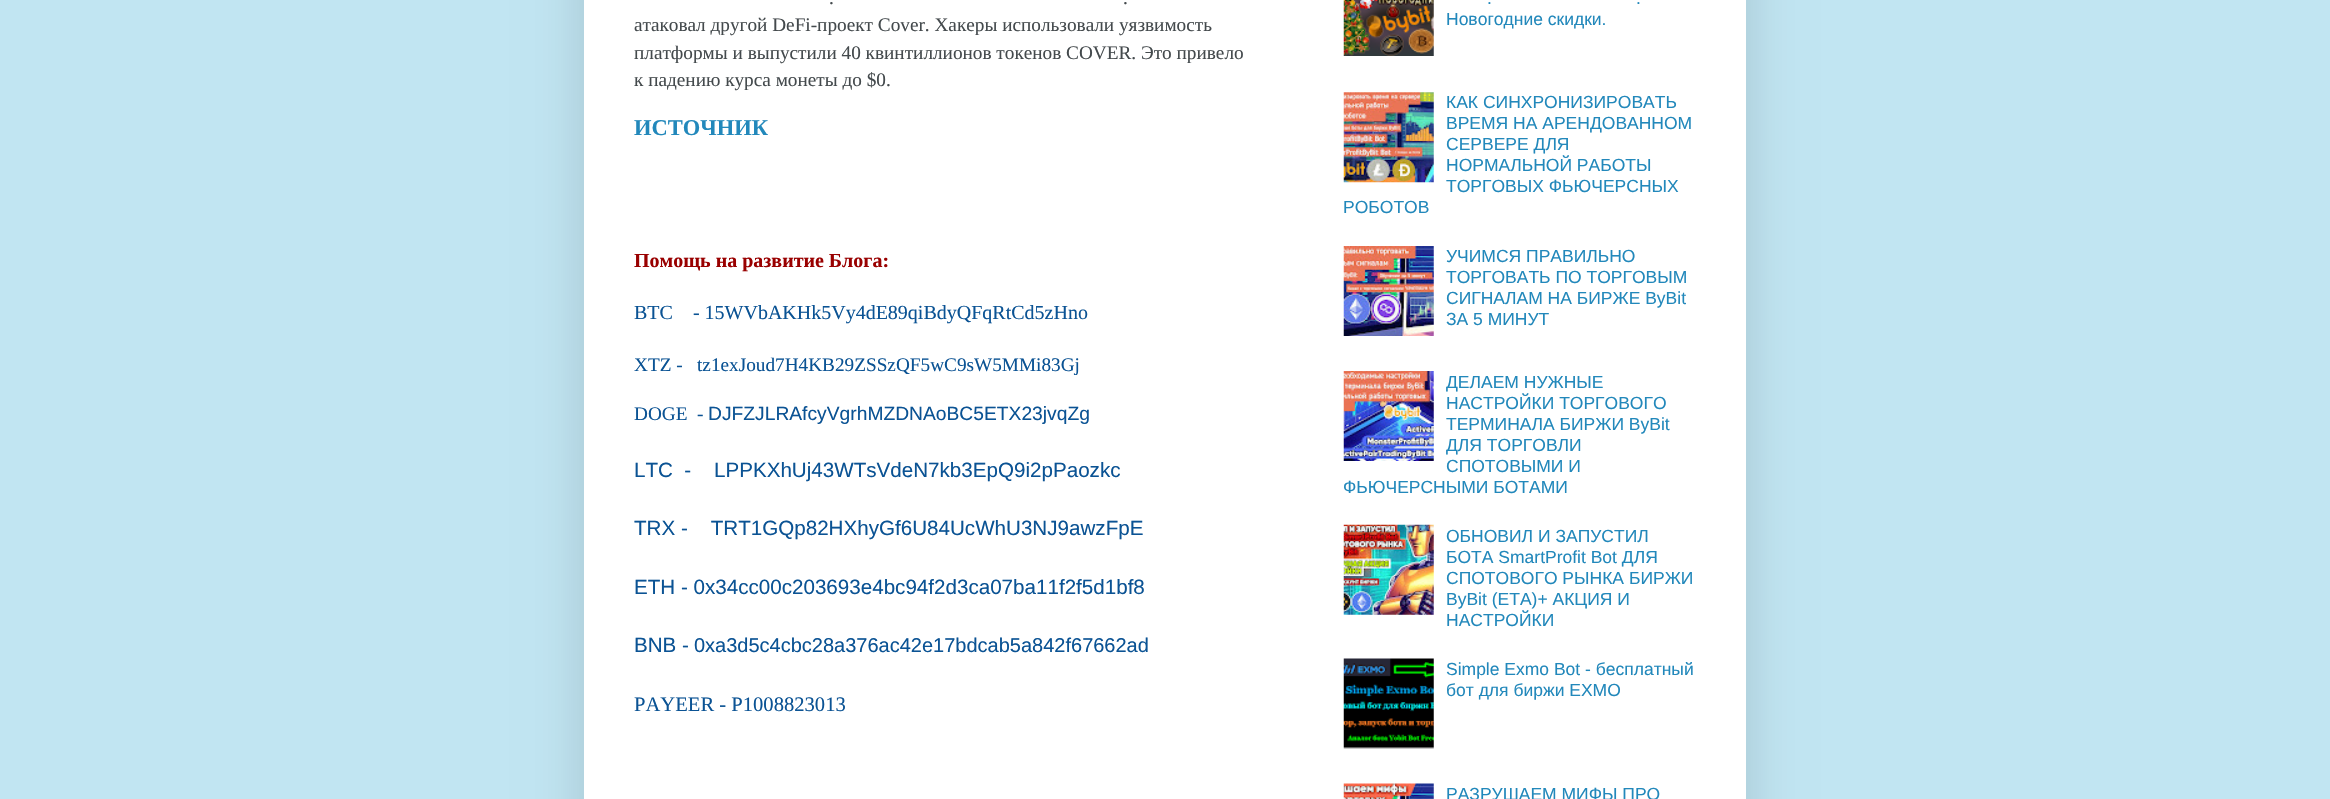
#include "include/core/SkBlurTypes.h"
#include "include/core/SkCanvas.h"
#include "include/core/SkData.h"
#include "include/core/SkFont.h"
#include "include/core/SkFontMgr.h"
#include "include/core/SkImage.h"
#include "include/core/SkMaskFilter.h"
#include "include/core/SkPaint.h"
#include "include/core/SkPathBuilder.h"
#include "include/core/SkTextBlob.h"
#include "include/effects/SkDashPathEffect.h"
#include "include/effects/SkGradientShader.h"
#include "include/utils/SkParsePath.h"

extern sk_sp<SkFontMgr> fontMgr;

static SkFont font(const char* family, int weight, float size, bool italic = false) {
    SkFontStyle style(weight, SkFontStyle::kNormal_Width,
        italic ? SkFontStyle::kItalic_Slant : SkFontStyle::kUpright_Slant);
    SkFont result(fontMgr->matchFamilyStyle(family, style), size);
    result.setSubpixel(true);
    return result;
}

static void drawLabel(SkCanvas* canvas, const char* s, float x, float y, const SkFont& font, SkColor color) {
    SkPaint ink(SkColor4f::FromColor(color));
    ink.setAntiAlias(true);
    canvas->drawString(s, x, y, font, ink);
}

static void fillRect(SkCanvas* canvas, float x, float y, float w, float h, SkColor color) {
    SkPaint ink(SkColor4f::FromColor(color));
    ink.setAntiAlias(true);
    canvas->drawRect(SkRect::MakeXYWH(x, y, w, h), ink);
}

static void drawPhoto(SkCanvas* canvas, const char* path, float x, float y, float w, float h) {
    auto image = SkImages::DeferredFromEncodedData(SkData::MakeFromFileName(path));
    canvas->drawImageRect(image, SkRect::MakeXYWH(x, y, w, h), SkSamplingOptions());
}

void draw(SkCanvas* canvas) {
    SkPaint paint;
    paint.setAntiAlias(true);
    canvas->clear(0xFFC1E5F2);
    paint.setColor(0x26000000);
    paint.setMaskFilter(SkMaskFilter::MakeBlur(kNormal_SkBlurStyle, 25));
    canvas->drawRect(SkRect::MakeXYWH(584, -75, 1162, 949), paint);
    paint.setMaskFilter(nullptr);
    fillRect(canvas, 584, 0, 1162, 799, 0xFFFFFFFF);
    SkFont font1 = font("Liberation Serif", 400, 19.25f);
    drawLabel(canvas, ".", 829, 4, font1, 0xFF444A4D);
    drawLabel(canvas, ".", 1123, 4, font1, 0xFF444A4D);
    drawLabel(canvas, "атаковал другой DeFi-проект Cover. Хакеры использовали уязвимость", 634, 31, font1, 0xFF444A4D);
    drawLabel(canvas, "платформы и выпустили 40 квинтиллионов токенов COVER. Это привело", 634, 59, font1, 0xFF444A4D);
    drawLabel(canvas, "к падению курса монеты до $0.", 634, 86, font1, 0xFF444A4D);
    SkFont font2 = font("Liberation Serif", 700, 22.5f);
    drawLabel(canvas, "ИСТОЧНИК", 634, 135, font2, 0xFF2288BB);
    SkFont font3 = font("Liberation Serif", 700, 20);
    drawLabel(canvas, "Помощь на развитие Блога:", 634, 267, font3, 0xFF990000);
    SkFont font4 = font("Liberation Serif", 400, 20);
    drawLabel(canvas, "BTC    - 15WVbAKHk5Vy4dE89qiBdyQFqRtCd5zHno", 634, 319, font4, 0xFF0B5394);
    drawLabel(canvas, "XTZ -", 634, 371, font1, 0xFF0B5394);
    drawLabel(canvas, "tz1exJoud7H4KB29ZSSzQF5wC9sW5MMi83Gj", 697, 371, font1, 0xFF0B5394);
    drawLabel(canvas, "DOGE  -", 634, 420, font1, 0xFF0B5394);
    SkFont font5 = font("Liberation Sans", 400, 19.25f);
    drawLabel(canvas, "DJFZJLRAfcyVgrhMZDNAoBC5ETX23jvqZg", 708, 420, font5, 0xFF0B5394);
    SkFont font6 = font("Liberation Sans", 400, 20.6f);
    drawLabel(canvas, "LTC  -", 634, 477, font6, 0xFF0B5394);
    drawLabel(canvas, "LPPKXhUj43WTsVdeN7kb3EpQ9i2pPaozkc", 714, 477, font6, 0xFF0B5394);
    drawLabel(canvas, "TRX -    TRT1GQp82HXhyGf6U84UcWhU3NJ9awzFpE", 634, 535, font6, 0xFF0B5394);
    drawLabel(canvas, "ETH - 0x34cc00c203693e4bc94f2d3ca07ba11f2f5d1bf8", 634, 594, font6, 0xFF0B5394);
    drawLabel(canvas, "BNB -", 634, 652, font6, 0xFF0B5394);
    SkFont font7 = font("Liberation Sans", 400, 20);
    drawLabel(canvas, "0xa3d5c4cbc28a376ac42e17bdcab5a842f67662ad", 694, 652, font7, 0xFF0B5394);
    SkFont font8 = font("Liberation Serif", 400, 20.6f);
    drawLabel(canvas, "PAYEER - P1008823013", 634, 711, font8, 0xFF0B5394);
    drawPhoto(canvas, "assets/img1.png", 1343, 0, 91, 56);
    SkFont font9 = font("Liberation Sans", 400, 17.5f);
    drawLabel(canvas, ".", 1487, 4, font9, 0xFF2288BB);
    drawLabel(canvas, ".", 1636, 4, font9, 0xFF2288BB);
    drawLabel(canvas, "Новогодние скидки.", 1446, 25, font9, 0xFF2288BB);
    drawPhoto(canvas, "assets/img2.png", 1343, 92, 91, 91);
    drawLabel(canvas, "КАК СИНХРОНИЗИРОВАТЬ", 1446, 108, font9, 0xFF2288BB);
    drawLabel(canvas, "ВРЕМЯ НА АРЕНДОВАННОМ", 1446, 129, font9, 0xFF2288BB);
    drawLabel(canvas, "СЕРВЕРЕ ДЛЯ", 1446, 150, font9, 0xFF2288BB);
    drawLabel(canvas, "НОРМАЛЬНОЙ РАБОТЫ", 1446, 171, font9, 0xFF2288BB);
    drawLabel(canvas, "ТОРГОВЫХ ФЬЮЧЕРСНЫХ", 1446, 192, font9, 0xFF2288BB);
    drawLabel(canvas, "РОБОТОВ", 1343, 213, font9, 0xFF2288BB);
    drawPhoto(canvas, "assets/img3.png", 1343, 246, 91, 90);
    drawLabel(canvas, "УЧИМСЯ ПРАВИЛЬНО", 1446, 262, font9, 0xFF2288BB);
    drawLabel(canvas, "ТОРГОВАТЬ ПО ТОРГОВЫМ", 1446, 283, font9, 0xFF2288BB);
    drawLabel(canvas, "СИГНАЛАМ НА БИРЖЕ ByBit", 1446, 304, font9, 0xFF2288BB);
    drawLabel(canvas, "ЗА 5 МИНУТ", 1446, 325, font9, 0xFF2288BB);
    drawPhoto(canvas, "assets/img4.png", 1343, 371, 91, 90);
    drawLabel(canvas, "ДЕЛАЕМ НУЖНЫЕ", 1446, 388, font9, 0xFF2288BB);
    drawLabel(canvas, "НАСТРОЙКИ ТОРГОВОГО", 1446, 409, font9, 0xFF2288BB);
    drawLabel(canvas, "ТЕРМИНАЛА БИРЖИ ByBit", 1446, 430, font9, 0xFF2288BB);
    drawLabel(canvas, "ДЛЯ ТОРГОВЛИ", 1446, 451, font9, 0xFF2288BB);
    drawLabel(canvas, "СПОТОВЫМИ И", 1446, 472, font9, 0xFF2288BB);
    drawLabel(canvas, "ФЬЮЧЕРСНЫМИ БОТАМИ", 1343, 493, font9, 0xFF2288BB);
    drawPhoto(canvas, "assets/img5.png", 1343, 524, 91, 91);
    drawLabel(canvas, "ОБНОВИЛ И ЗАПУСТИЛ", 1446, 542, font9, 0xFF2288BB);
    drawLabel(canvas, "БОТА SmartProfit Bot ДЛЯ", 1446, 563, font9, 0xFF2288BB);
    drawLabel(canvas, "СПОТОВОГО РЫНКА БИРЖИ", 1446, 584, font9, 0xFF2288BB);
    drawLabel(canvas, "ByBit (ETA)+ АКЦИЯ И", 1446, 605, font9, 0xFF2288BB);
    drawLabel(canvas, "НАСТРОЙКИ", 1446, 626, font9, 0xFF2288BB);
    drawPhoto(canvas, "assets/img6.png", 1343, 658, 91, 91);
    drawLabel(canvas, "Simple Exmo Bot - бесплатный", 1446, 675, font9, 0xFF2288BB);
    drawLabel(canvas, "бот для биржи EXMO", 1446, 696, font9, 0xFF2288BB);
    drawPhoto(canvas, "assets/img7.png", 1343, 783, 91, 16);
    drawLabel(canvas, "РАЗРУШАЕМ МИФЫ ПРО", 1446, 800, font9, 0xFF2288BB);
}
